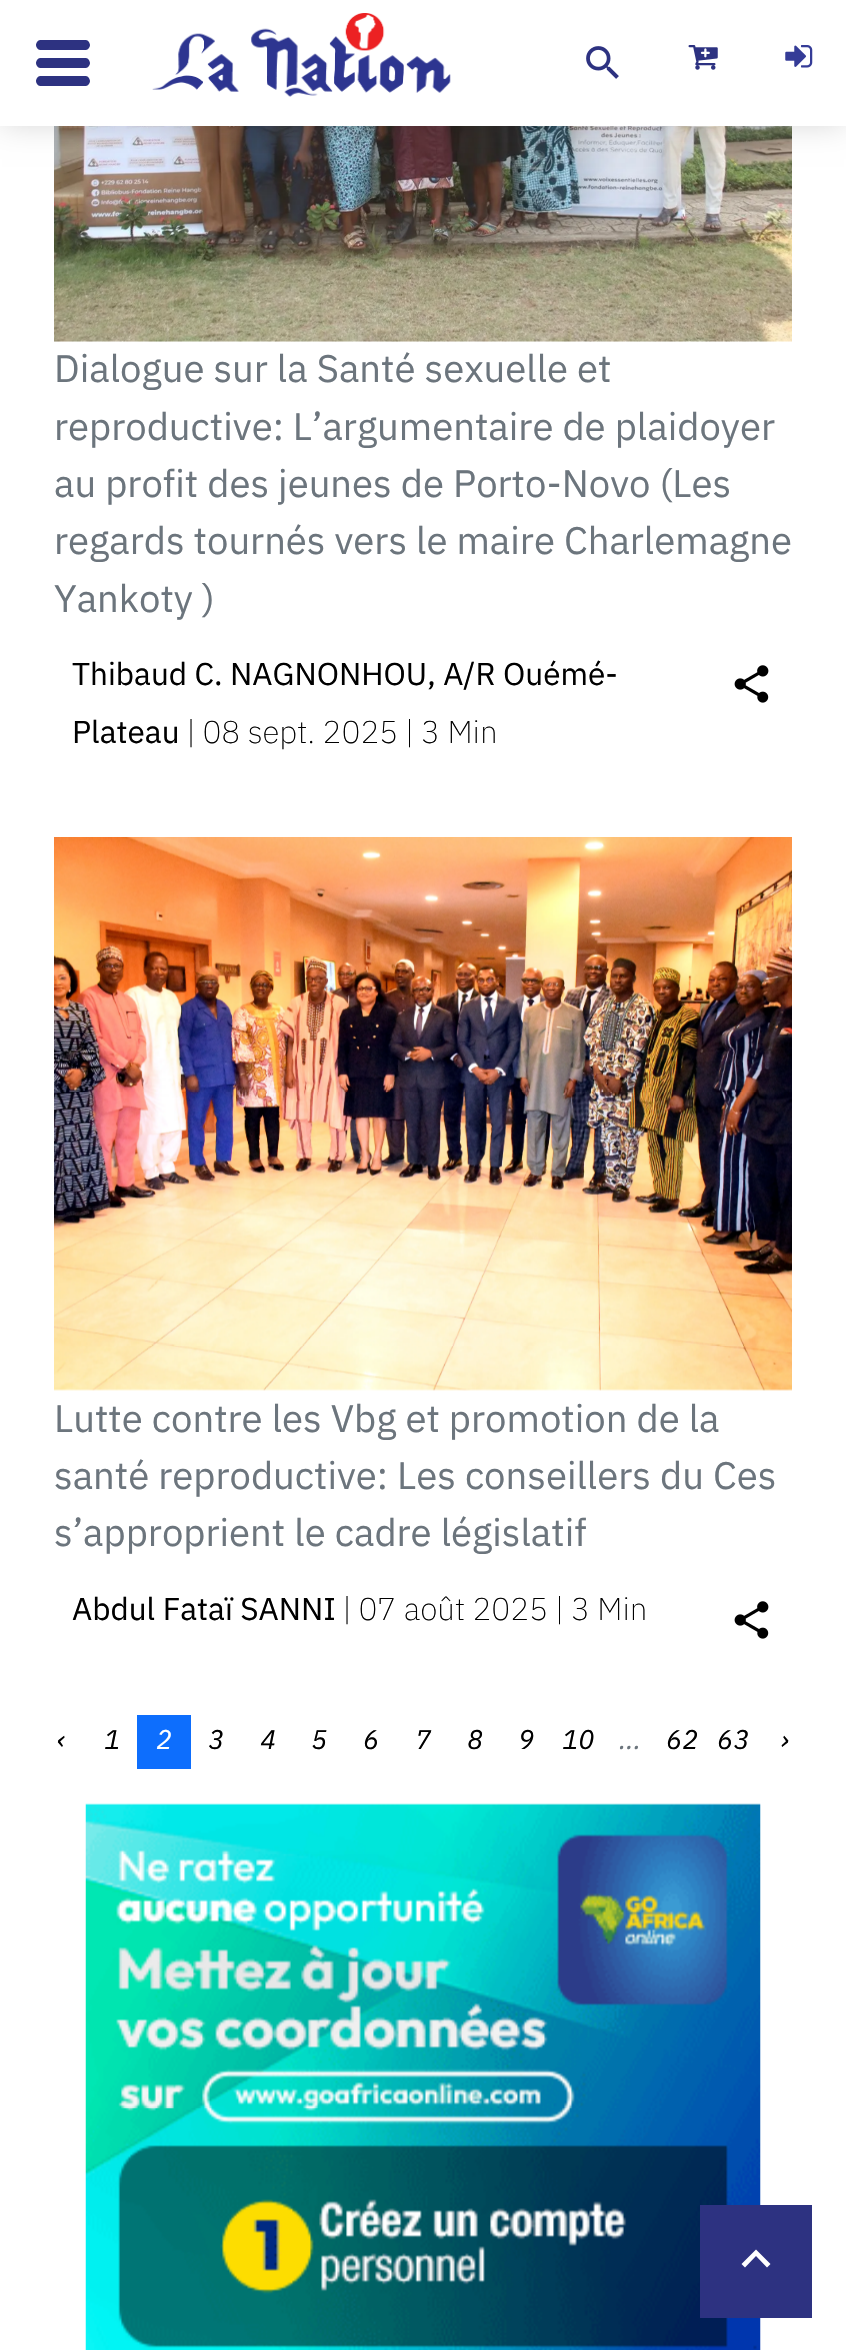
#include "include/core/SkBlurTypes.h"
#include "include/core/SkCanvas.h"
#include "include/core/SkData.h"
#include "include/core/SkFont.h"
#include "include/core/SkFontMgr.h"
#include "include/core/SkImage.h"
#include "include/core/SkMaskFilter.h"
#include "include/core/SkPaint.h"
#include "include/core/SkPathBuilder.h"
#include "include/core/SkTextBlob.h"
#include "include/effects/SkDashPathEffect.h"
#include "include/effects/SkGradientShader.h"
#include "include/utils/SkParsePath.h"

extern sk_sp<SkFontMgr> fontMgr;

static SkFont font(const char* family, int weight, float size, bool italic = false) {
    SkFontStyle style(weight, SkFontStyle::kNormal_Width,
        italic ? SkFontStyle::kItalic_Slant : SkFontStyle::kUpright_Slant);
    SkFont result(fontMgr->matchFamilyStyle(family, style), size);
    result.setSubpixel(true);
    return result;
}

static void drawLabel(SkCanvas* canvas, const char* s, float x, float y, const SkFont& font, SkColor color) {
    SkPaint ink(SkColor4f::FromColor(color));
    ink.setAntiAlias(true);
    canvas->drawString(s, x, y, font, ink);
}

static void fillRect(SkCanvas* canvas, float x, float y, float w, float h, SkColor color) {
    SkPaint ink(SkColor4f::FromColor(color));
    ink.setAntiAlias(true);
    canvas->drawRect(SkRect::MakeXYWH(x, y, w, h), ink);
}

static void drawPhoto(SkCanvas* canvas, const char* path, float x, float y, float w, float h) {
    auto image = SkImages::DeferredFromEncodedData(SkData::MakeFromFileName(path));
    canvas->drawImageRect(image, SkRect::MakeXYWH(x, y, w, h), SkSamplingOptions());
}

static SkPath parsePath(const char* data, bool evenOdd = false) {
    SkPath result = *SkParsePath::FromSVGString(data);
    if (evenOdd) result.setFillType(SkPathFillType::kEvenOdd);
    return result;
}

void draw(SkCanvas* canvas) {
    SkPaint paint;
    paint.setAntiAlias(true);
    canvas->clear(0xFFFFFFFF);
    drawPhoto(canvas, "assets/img5.png", 54, 126, 738, 216);
    paint.setColor(0x2B000000);
    paint.setMaskFilter(SkMaskFilter::MakeBlur(kNormal_SkBlurStyle, 14.5f));
    canvas->drawRect(SkRect::MakeXYWH(2, 2, 842, 122), paint);
    paint.setMaskFilter(nullptr);
    fillRect(canvas, 0, 0, 846, 126, 0xFFFFFFFF);
    paint.setColor(0xFF2D3281);
    canvas->drawPath(parsePath("M86 68H40C38 68 36 65 36 63C36 61 38 58 40 58H86C88 58 90 61 90 63C90 65 88 68 86 68ZM86 86H40C38 86 36 83 36 81C36 79 38 76 40 76H86C88 76 90 79 90 81C90 83 88 86 86 86ZM86 50H40C38 50 36 47 36 45C36 43 38 40 40 40H86C88 40 90 43 90 45C90 47 88 50 86 50Z"), paint);
    drawPhoto(canvas, "assets/img1.png", 152, 13, 299, 84);
    drawPhoto(canvas, "assets/img2.png", 586, 46, 33, 33);
    drawPhoto(canvas, "assets/img3.png", 688, 45, 30, 25);
    drawPhoto(canvas, "assets/img4.png", 785, 45, 28, 23);
    SkFont font1 = font("IBM Plex Sans", 400, 38.25f);
    drawLabel(canvas, "Dialogue sur la Santé sexuelle et", 54, 382, font1, 0xFF6C757D);
    drawLabel(canvas, "reproductive: L’argumentaire de plaidoyer", 54, 440, font1, 0xFF6C757D);
    drawLabel(canvas, "au profit des jeunes de Porto-Novo (Les", 54, 497, font1, 0xFF6C757D);
    drawLabel(canvas, "regards tournés vers le maire Charlemagne", 54, 554, font1, 0xFF6C757D);
    drawLabel(canvas, "Yankoty )", 54, 612, font1, 0xFF6C757D);
    SkFont font2 = font("IBM Plex Sans", 400, 31.5f);
    drawLabel(canvas, "Thibaud C. NAGNONHOU, A/R Ouémé-", 72, 685, font2, 0xFF000000);
    drawLabel(canvas, "Plateau", 72, 743, font2, 0xFF000000);
    SkFont font3 = font("IBM Plex Sans", 200, 31.5f);
    drawLabel(canvas, "| 08 sept. 2025 | 3 Min", 187, 743, font3, 0xFF000000);
    drawPhoto(canvas, "assets/img6.png", 734, 665, 35, 38);
    drawPhoto(canvas, "assets/img7.png", 54, 837, 738, 554);
    drawLabel(canvas, "Lutte contre les Vbg et promotion de la", 54, 1432, font1, 0xFF6C757D);
    drawLabel(canvas, "santé reproductive: Les conseillers du Ces", 54, 1489, font1, 0xFF6C757D);
    drawLabel(canvas, "s’approprient le cadre législatif", 54, 1546, font1, 0xFF6C757D);
    drawLabel(canvas, "Abdul Fataï SANNI", 72, 1620, font2, 0xFF000000);
    drawLabel(canvas, "| 07 août 2025 | 3 Min", 343, 1620, font3, 0xFF000000);
    drawPhoto(canvas, "assets/img6.png", 734, 1601, 35, 38);
    SkFont font4 = font("IBM Plex Sans", 400, 27, true);
    drawLabel(canvas, "‹", 57, 1749, font4, 0xFF000000);
    drawLabel(canvas, "1", 104, 1749, font4, 0xFF000000);
    fillRect(canvas, 137, 1715, 54, 54, 0xFF0D6EFD);
    drawLabel(canvas, "2", 156, 1749, font4, 0xFFFFFFFF);
    drawLabel(canvas, "3", 208, 1749, font4, 0xFF000000);
    drawLabel(canvas, "4", 260, 1749, font4, 0xFF000000);
    drawLabel(canvas, "5", 311, 1749, font4, 0xFF000000);
    drawLabel(canvas, "6", 363, 1749, font4, 0xFF000000);
    drawLabel(canvas, "7", 415, 1749, font4, 0xFF000000);
    drawLabel(canvas, "8", 467, 1749, font4, 0xFF000000);
    drawLabel(canvas, "9", 518, 1749, font4, 0xFF000000);
    drawLabel(canvas, "10", 562, 1749, font4, 0xFF000000);
    drawLabel(canvas, "62", 666, 1749, font4, 0xFF000000);
    drawLabel(canvas, "63", 717, 1749, font4, 0xFF000000);
    drawLabel(canvas, "›", 781, 1749, font4, 0xFF000000);
    drawLabel(canvas, "...", 619, 1749, font4, 0xFF6C757D);
    drawPhoto(canvas, "assets/img8.png", 85, 1803, 676, 547);
    fillRect(canvas, 700, 2205, 112, 113, 0xFF2D3281);
    paint.setColor(0xFFFFFFFF);
    canvas->drawPath(parsePath("M745 2267.5L741.5 2264L756 2249.5L770.5 2264L767 2267.5L756 2256Z"), paint);
}
